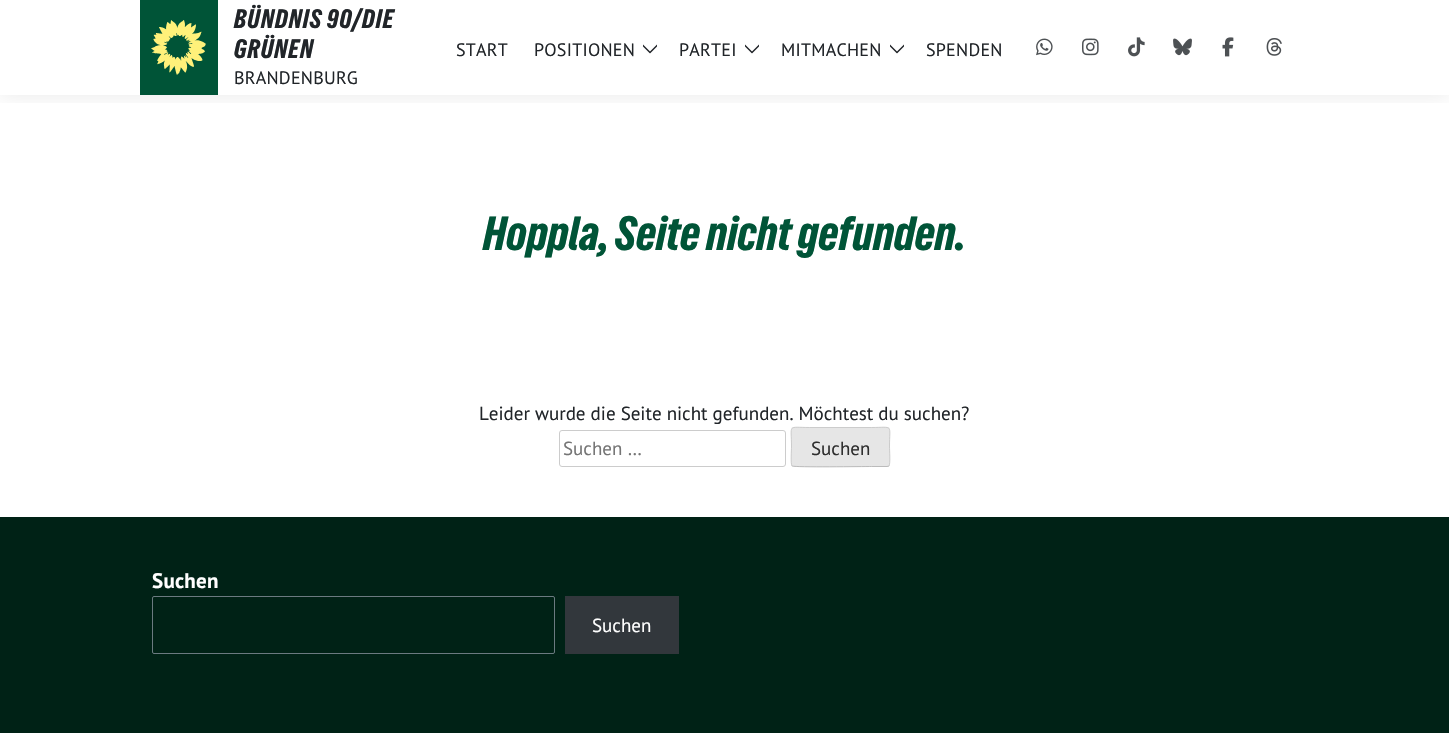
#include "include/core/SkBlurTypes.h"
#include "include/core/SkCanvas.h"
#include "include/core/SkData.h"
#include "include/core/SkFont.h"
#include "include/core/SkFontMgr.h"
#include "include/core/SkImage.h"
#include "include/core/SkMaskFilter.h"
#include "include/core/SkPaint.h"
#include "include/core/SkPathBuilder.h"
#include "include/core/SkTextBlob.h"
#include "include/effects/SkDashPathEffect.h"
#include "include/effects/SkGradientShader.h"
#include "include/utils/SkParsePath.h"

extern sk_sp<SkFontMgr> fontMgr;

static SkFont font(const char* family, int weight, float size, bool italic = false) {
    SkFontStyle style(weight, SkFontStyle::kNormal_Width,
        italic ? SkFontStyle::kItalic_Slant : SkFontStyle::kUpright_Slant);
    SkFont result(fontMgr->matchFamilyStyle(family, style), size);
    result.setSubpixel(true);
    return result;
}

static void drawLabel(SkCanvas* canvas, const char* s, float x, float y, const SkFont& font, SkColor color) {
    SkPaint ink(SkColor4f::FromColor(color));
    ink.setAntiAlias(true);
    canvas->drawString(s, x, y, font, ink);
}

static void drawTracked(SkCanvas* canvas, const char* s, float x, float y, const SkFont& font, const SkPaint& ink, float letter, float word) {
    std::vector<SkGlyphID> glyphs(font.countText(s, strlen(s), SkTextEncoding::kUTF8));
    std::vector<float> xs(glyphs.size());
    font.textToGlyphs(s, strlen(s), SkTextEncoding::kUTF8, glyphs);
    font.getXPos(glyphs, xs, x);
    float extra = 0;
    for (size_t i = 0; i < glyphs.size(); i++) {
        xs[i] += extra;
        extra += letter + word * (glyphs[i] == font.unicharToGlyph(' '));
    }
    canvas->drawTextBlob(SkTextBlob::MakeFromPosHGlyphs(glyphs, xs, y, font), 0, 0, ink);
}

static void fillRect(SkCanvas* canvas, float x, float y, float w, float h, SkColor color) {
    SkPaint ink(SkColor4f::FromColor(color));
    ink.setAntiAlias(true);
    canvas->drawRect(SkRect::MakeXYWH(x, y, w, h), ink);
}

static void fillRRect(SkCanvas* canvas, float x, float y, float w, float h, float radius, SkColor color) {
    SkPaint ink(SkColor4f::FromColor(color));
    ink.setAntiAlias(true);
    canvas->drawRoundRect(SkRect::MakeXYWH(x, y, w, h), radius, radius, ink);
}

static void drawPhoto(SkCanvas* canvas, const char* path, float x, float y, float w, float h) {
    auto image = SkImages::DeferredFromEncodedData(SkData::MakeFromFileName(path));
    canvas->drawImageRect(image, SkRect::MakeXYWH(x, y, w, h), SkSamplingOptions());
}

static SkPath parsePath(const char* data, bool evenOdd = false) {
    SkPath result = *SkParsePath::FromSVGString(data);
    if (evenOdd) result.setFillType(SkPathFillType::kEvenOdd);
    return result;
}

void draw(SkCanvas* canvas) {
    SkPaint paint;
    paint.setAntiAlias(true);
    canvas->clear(0xFFFFFFFF);
    canvas->save();
    canvas->clipRect(SkRect::MakeXYWH(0, 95, 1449, 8));
    paint.setColor(0x14000000);
    paint.setMaskFilter(SkMaskFilter::MakeBlur(kNormal_SkBlurStyle, 10));
    canvas->drawRect(SkRect::MakeXYWH(0, 1, 1449, 95), paint);
    paint.setMaskFilter(nullptr);
    canvas->restore();
    fillRect(canvas, 140, 0, 78, 95, 0xFF005437);
    drawPhoto(canvas, "assets/img1.png", 151, 20, 55, 55);
    SkFont font1 = font("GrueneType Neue", 400, 25);
    paint.setColor(0xFF212529);
    drawTracked(canvas, "BÜNDNIS 90/DIE", 234, 28, font1, paint, 1, 0);
    drawTracked(canvas, "GRÜNEN", 234, 58, font1, paint, 1, 0);
    SkFont font2 = font("PT Sans", 400, 18);
    drawTracked(canvas, "BRANDENBURG", 234, 84, font2, paint, 0.25f, 0);
    drawTracked(canvas, "START", 456, 56, font2, paint, 0.25f, 0);
    drawTracked(canvas, "POSITIONEN", 534, 56, font2, paint, 0.25f, 0);
    canvas->save();
    canvas->clipRect(SkRect::MakeXYWH(643, 36, 14, 24));
    paint.setStroke(true);
    paint.setStrokeWidth(1.5f);
    paint.setStrokeCap(SkPaint::kRound_Cap);
    paint.setStrokeJoin(SkPaint::kRound_Join);
    canvas->drawPath(parsePath("M641 43.5L650 52.5L659 43.5"), paint);
    canvas->restore();
    paint.setStroke(false);
    drawTracked(canvas, "PARTEI", 679, 56, font2, paint, 0.25f, 0);
    canvas->save();
    canvas->clipRect(SkRect::MakeXYWH(745, 36, 14, 24));
    paint.setStroke(true);
    canvas->drawPath(parsePath("M743 43.5L752 52.5L761 43.5"), paint);
    canvas->restore();
    paint.setStroke(false);
    drawTracked(canvas, "MITMACHEN", 781, 56, font2, paint, 0.25f, 0);
    canvas->save();
    canvas->clipRect(SkRect::MakeXYWH(890, 36, 14, 24));
    paint.setStroke(true);
    canvas->drawPath(parsePath("M888 43.5L897 52.5L906 43.5"), paint);
    canvas->restore();
    paint.setStroke(false);
    drawTracked(canvas, "SPENDEN", 926, 56, font2, paint, 0.25f, 0);
    drawPhoto(canvas, "assets/img2.png", 1036, 38, 17, 18);
    drawPhoto(canvas, "assets/img3.png", 1082, 38, 17, 18);
    drawPhoto(canvas, "assets/img4.png", 1128, 37, 17, 20);
    drawPhoto(canvas, "assets/img5.png", 1173, 38, 19, 18);
    drawPhoto(canvas, "assets/img6.png", 1222, 37, 12, 20);
    drawPhoto(canvas, "assets/img7.png", 1266, 38, 16, 18);
    SkFont font3 = font("GrueneType Neue", 400, 45);
    drawLabel(canvas, "Hoppla, Seite nicht gefunden.", 483, 250, font3, 0xFF005437);
    SkFont font4 = font("PT Sans", 400, 19);
    drawLabel(canvas, "Leider wurde die Seite nicht gefunden. Möchtest du suchen?", 479, 420, font4, 0xFF212529);
    paint.setStroke(true);
    paint.setStrokeWidth(1);
    paint.setStrokeCap(SkPaint::kButt_Cap);
    paint.setStrokeJoin(SkPaint::kMiter_Join);
    paint.setColor(0xFFCCCCCC);
    canvas->drawRoundRect(SkRect::MakeXYWH(559.5f, 430.5f, 226, 36), 2.5f, 2.5f, paint);
    drawLabel(canvas, "Suchen …", 563, 455, font4, 0xFF757575);
    fillRRect(canvas, 791, 427, 99, 40, 3, 0xFFE6E6E6);
    paint.setColor(0xFFBBBBBB);
    canvas->drawPath(parsePath("M889 466L887 466.5H871.5C863.5 466.5 794.5 467.5 792.5 466H792"), paint);
    paint.setColor(0xFFCCCCCC);
    canvas->drawPath(parsePath("M792 466C790.5 464 791.5 450 791.5 447C791.5 423.5 787 427.5 809.5 427.5H871.5C894 427.5 889.5 423.5 889.5 447C889.5 450 890.5 464 889 466"), paint);
    drawLabel(canvas, "Suchen", 811, 455, font4, 0xFF2E2E2E);
    fillRect(canvas, 0, 517, 1449, 216, 0xFF002216);
    SkFont font5 = font("PT Sans", 700, 21);
    paint.setStroke(false);
    paint.setColor(0xFFFFFFFF);
    drawTracked(canvas, "Suchen", 152, 588, font5, paint, 0.25f, 0);
    paint.setStroke(true);
    paint.setColor(0xFF6B7A80);
    canvas->drawRoundRect(SkRect::MakeXYWH(152.5f, 596.5f, 402, 57), 1.5f, 1.5f, paint);
    fillRect(canvas, 565, 596, 114, 58, 0xFF32373C);
    drawLabel(canvas, "Suchen", 592, 632, font4, 0xFFFFFFFF);
}
